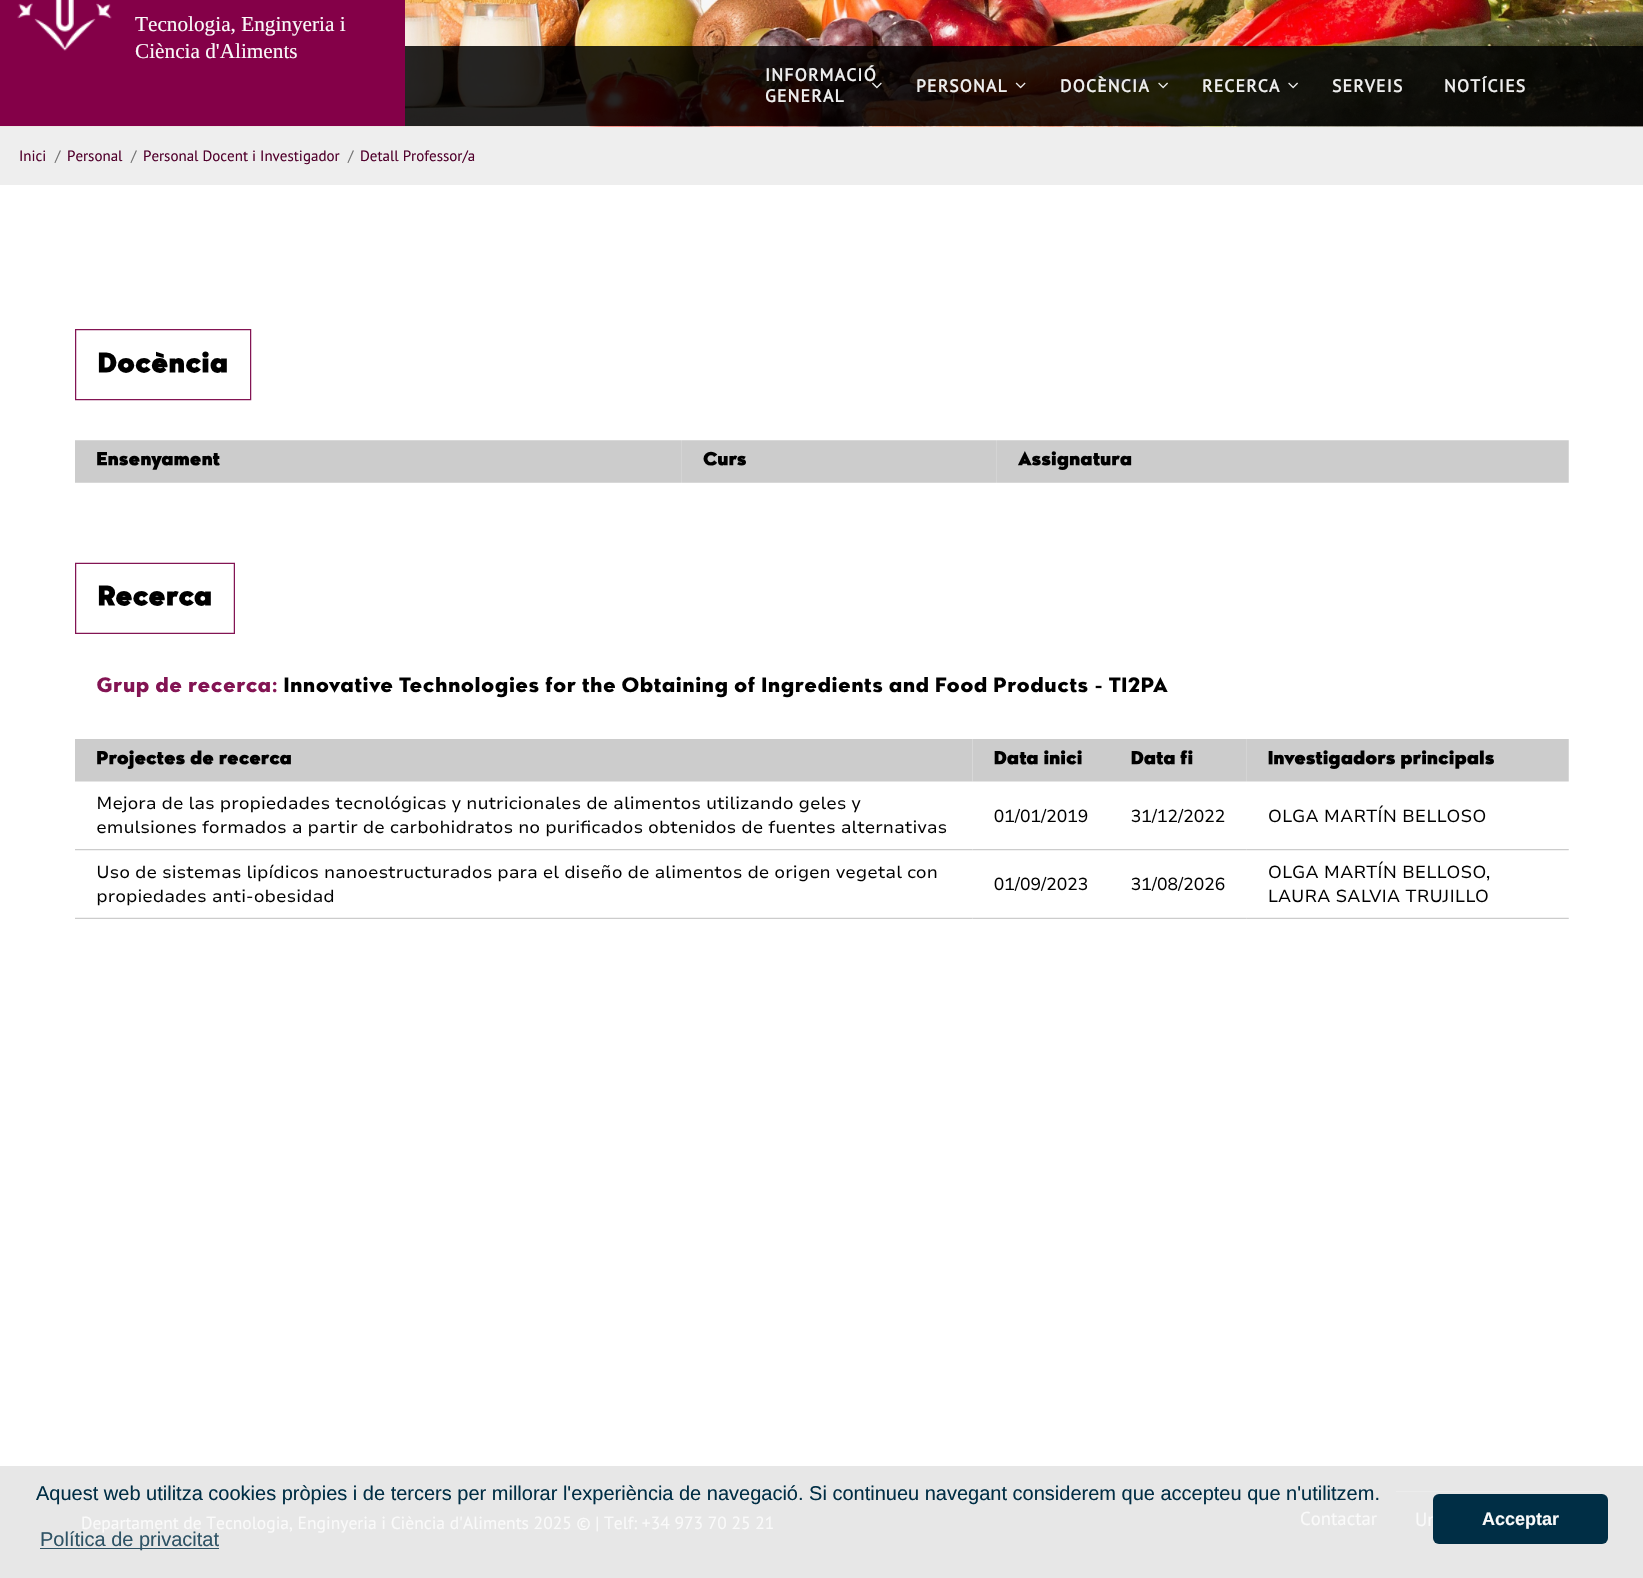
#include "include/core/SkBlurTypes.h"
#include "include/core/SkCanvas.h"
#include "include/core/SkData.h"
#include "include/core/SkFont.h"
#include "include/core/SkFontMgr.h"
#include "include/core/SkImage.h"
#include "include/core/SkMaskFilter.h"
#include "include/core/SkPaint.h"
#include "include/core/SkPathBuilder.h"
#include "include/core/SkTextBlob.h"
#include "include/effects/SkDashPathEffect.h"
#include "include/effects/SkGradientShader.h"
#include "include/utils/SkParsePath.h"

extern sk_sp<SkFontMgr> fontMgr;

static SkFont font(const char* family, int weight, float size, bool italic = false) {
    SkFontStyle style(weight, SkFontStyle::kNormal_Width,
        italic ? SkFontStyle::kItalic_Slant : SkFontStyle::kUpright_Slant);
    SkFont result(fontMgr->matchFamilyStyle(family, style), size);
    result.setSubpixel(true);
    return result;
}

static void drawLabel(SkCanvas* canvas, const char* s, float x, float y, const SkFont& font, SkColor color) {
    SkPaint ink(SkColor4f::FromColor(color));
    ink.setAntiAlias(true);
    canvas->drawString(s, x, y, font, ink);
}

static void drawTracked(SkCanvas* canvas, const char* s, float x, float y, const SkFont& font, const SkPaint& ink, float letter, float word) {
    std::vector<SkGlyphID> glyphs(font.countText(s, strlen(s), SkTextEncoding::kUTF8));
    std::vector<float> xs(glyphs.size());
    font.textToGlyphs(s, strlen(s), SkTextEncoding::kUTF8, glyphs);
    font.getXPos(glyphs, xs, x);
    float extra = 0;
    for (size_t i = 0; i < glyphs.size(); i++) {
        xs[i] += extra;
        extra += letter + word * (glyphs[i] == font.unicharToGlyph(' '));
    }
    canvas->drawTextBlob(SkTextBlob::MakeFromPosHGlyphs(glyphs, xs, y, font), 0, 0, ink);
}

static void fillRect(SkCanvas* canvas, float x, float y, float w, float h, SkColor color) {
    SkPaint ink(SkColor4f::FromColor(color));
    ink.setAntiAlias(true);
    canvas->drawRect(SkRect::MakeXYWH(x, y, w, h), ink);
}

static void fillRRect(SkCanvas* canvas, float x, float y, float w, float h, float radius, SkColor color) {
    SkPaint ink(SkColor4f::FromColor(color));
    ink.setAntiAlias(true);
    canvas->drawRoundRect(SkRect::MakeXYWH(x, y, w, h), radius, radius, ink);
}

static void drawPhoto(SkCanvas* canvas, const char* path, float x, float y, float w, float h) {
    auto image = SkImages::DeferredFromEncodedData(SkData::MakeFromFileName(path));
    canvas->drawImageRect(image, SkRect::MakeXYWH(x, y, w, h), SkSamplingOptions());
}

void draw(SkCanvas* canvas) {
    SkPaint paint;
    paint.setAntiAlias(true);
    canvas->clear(0xFFEEEEEE);
    drawPhoto(canvas, "assets/img1.png", 0, 0, 1643, 127);
    fillRect(canvas, 0, 0, 405, 126, 0xFF840048);
    drawPhoto(canvas, "assets/img2.png", 17, 0, 95, 51);
    SkFont font1 = font("Liberation Serif", 400, 21.25f);
    drawLabel(canvas, "Tecnologia, Enginyeria i", 135, 31, font1, 0xFFFAFAFA);
    drawLabel(canvas, "Ciència d'Aliments", 135, 58, font1, 0xFFFAFAFA);
    fillRect(canvas, 405, 46, 1238, 80, 0xD9000000);
    SkFont font2 = font("PT Sans", 700, 17.5f);
    paint.setColor(0xFFEEEEEE);
    drawTracked(canvas, "INFORMACIÓ", 765, 81, font2, paint, 1.25f, 0);
    drawPhoto(canvas, "assets/img3.png", 872, 82, 10, 7);
    drawTracked(canvas, "GENERAL", 765, 102, font2, paint, 1.25f, 0);
    drawTracked(canvas, "PERSONAL", 916, 92, font2, paint, 1.25f, 0);
    drawPhoto(canvas, "assets/img4.png", 1015, 82, 11, 7);
    drawTracked(canvas, "DOCÈNCIA", 1060, 92, font2, paint, 1.25f, 0);
    drawPhoto(canvas, "assets/img5.png", 1158, 82, 10, 7);
    drawTracked(canvas, "RECERCA", 1202, 92, font2, paint, 1.25f, 0);
    drawPhoto(canvas, "assets/img6.png", 1288, 82, 10, 7);
    drawTracked(canvas, "SERVEIS", 1332, 92, font2, paint, 1.25f, 0);
    drawTracked(canvas, "NOTÍCIES", 1444, 92, font2, paint, 1.25f, 0);
    SkFont font3 = font("PT Sans", 400, 15);
    drawLabel(canvas, "Inici", 19, 161, font3, 0xFF51002C);
    drawLabel(canvas, "/", 55, 161, font3, 0xFF737373);
    drawLabel(canvas, "Personal", 67, 161, font3, 0xFF51002C);
    drawLabel(canvas, "/", 131, 161, font3, 0xFF737373);
    drawLabel(canvas, "Personal Docent i Investigador", 143, 161, font3, 0xFF51002C);
    drawLabel(canvas, "/", 348, 161, font3, 0xFF737373);
    drawLabel(canvas, "Detall Professor/a", 360, 161, font3, 0xFF51002C);
    fillRect(canvas, 0, 185, 1643, 1281, 0xFFFFFFFF);
    drawPhoto(canvas, "assets/img7.png", 75, 329, 1494, 590);
    fillRect(canvas, 0, 1466, 1643, 112, 0xFFE7E7E7);
    SkFont font4 = font("PT Sans", 400, 17.5f);
    drawLabel(canvas, "Departament de Tecnologia, Enginyeria i Ciència d'Aliments 2025 © | Telf: +34 973 70 25 21", 81, 1529, font4, 0xFFFAFAFA);
    SkFont font5 = font("PT Sans", 400, 18.75f);
    drawLabel(canvas, "Contactar", 1300, 1525, font5, 0xFFFAFAFA);
    fillRect(canvas, 1396, 1491, 204, 1, 0xFFECECEC);
    drawLabel(canvas, "Un", 1415, 1526, font5, 0xFFFAFAFA);
    SkFont font6 = font("Liberation Sans", 400, 20);
    drawLabel(canvas, "Aquest web utilitza cookies pròpies i de tercers per millorar l'experiència de navegació. Si continueu navegant considerem que accepteu que n'utilitzem.", 36, 1500, font6, 0xFF002E45);
    fillRect(canvas, 40, 1548, 179, 1, 0xFF2E5365);
    drawLabel(canvas, "Política de privacitat", 40, 1546, font6, 0xFF2E5365);
    fillRRect(canvas, 1433, 1494, 175, 50, 6, 0xFF002E45);
    SkFont font7 = font("Liberation Sans", 700, 18);
    drawLabel(canvas, "Acceptar", 1482, 1525, font7, 0xFFFAFAFA);
}
